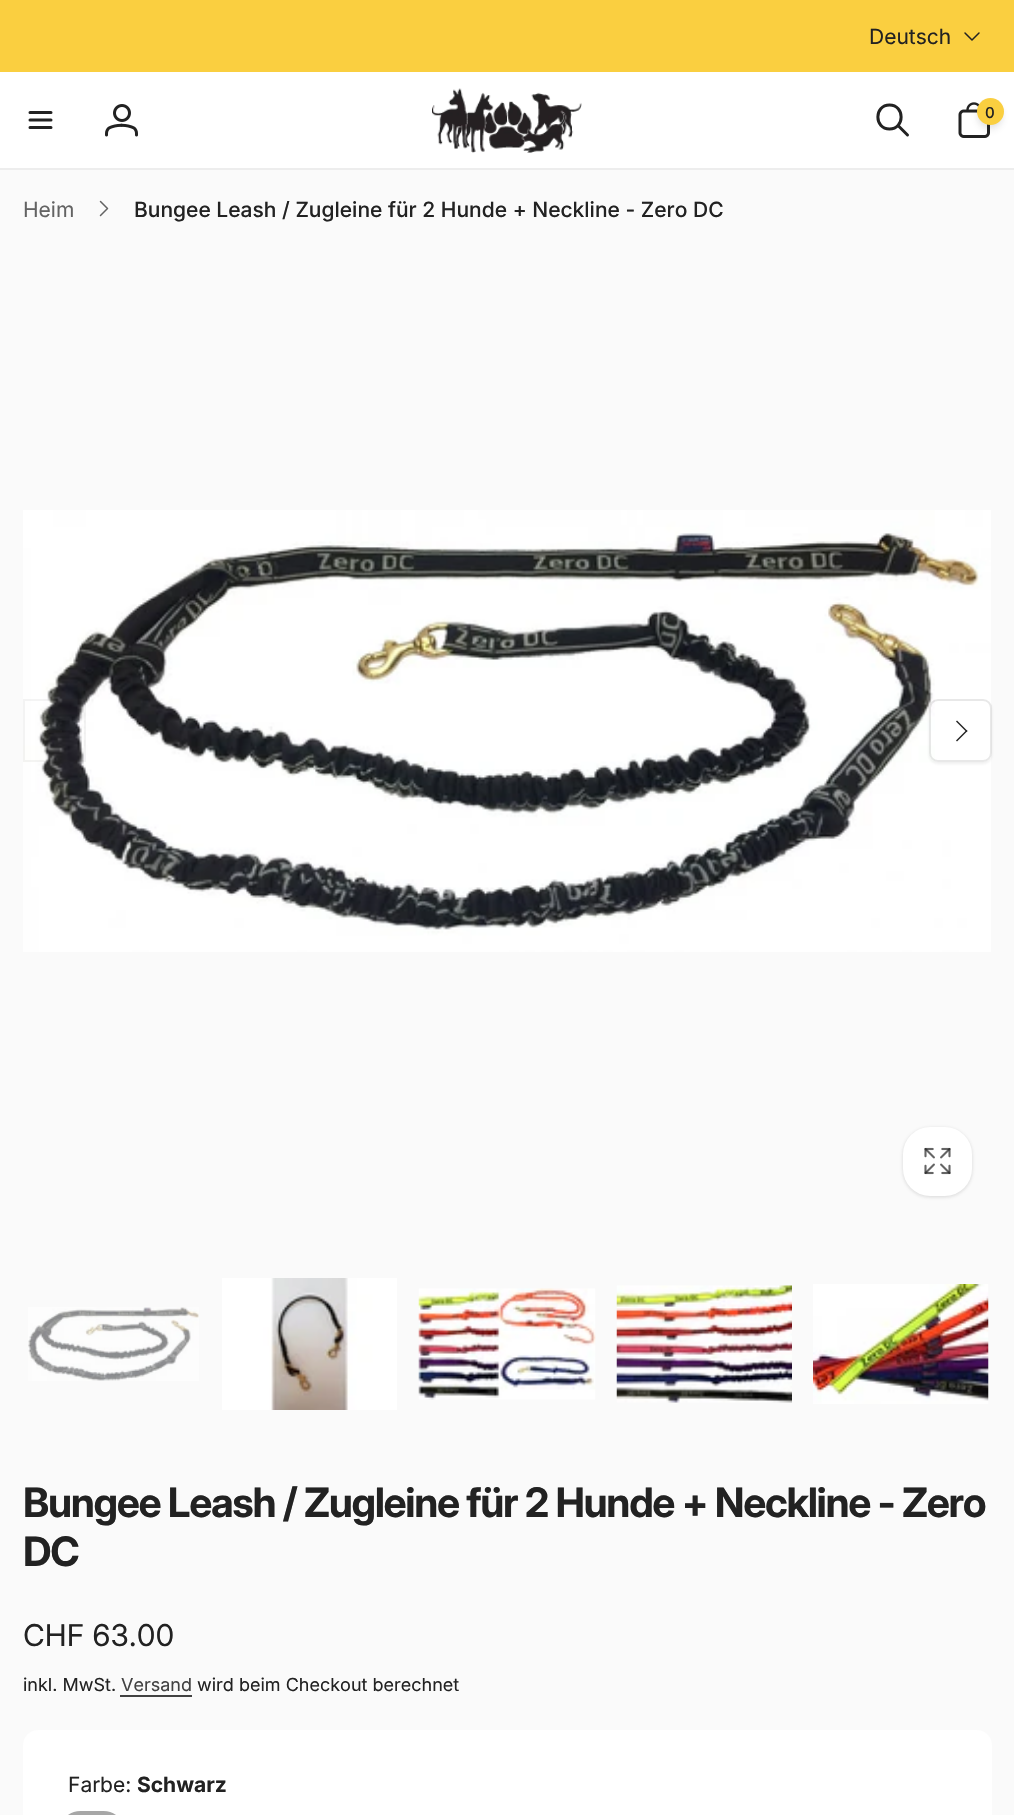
#include "include/core/SkBlurTypes.h"
#include "include/core/SkCanvas.h"
#include "include/core/SkData.h"
#include "include/core/SkFont.h"
#include "include/core/SkFontMgr.h"
#include "include/core/SkImage.h"
#include "include/core/SkMaskFilter.h"
#include "include/core/SkPaint.h"
#include "include/core/SkPathBuilder.h"
#include "include/core/SkTextBlob.h"
#include "include/effects/SkDashPathEffect.h"
#include "include/effects/SkGradientShader.h"
#include "include/utils/SkParsePath.h"

extern sk_sp<SkFontMgr> fontMgr;

static SkFont font(const char* family, int weight, float size, bool italic = false) {
    SkFontStyle style(weight, SkFontStyle::kNormal_Width,
        italic ? SkFontStyle::kItalic_Slant : SkFontStyle::kUpright_Slant);
    SkFont result(fontMgr->matchFamilyStyle(family, style), size);
    result.setSubpixel(true);
    return result;
}

static void drawLabel(SkCanvas* canvas, const char* s, float x, float y, const SkFont& font, SkColor color) {
    SkPaint ink(SkColor4f::FromColor(color));
    ink.setAntiAlias(true);
    canvas->drawString(s, x, y, font, ink);
}

static void drawTracked(SkCanvas* canvas, const char* s, float x, float y, const SkFont& font, const SkPaint& ink, float letter, float word) {
    std::vector<SkGlyphID> glyphs(font.countText(s, strlen(s), SkTextEncoding::kUTF8));
    std::vector<float> xs(glyphs.size());
    font.textToGlyphs(s, strlen(s), SkTextEncoding::kUTF8, glyphs);
    font.getXPos(glyphs, xs, x);
    float extra = 0;
    for (size_t i = 0; i < glyphs.size(); i++) {
        xs[i] += extra;
        extra += letter + word * (glyphs[i] == font.unicharToGlyph(' '));
    }
    canvas->drawTextBlob(SkTextBlob::MakeFromPosHGlyphs(glyphs, xs, y, font), 0, 0, ink);
}

static void fillRect(SkCanvas* canvas, float x, float y, float w, float h, SkColor color) {
    SkPaint ink(SkColor4f::FromColor(color));
    ink.setAntiAlias(true);
    canvas->drawRect(SkRect::MakeXYWH(x, y, w, h), ink);
}

static void fillRRect(SkCanvas* canvas, float x, float y, float w, float h, float radius, SkColor color) {
    SkPaint ink(SkColor4f::FromColor(color));
    ink.setAntiAlias(true);
    canvas->drawRoundRect(SkRect::MakeXYWH(x, y, w, h), radius, radius, ink);
}

static void drawPhoto(SkCanvas* canvas, const char* path, float x, float y, float w, float h) {
    auto image = SkImages::DeferredFromEncodedData(SkData::MakeFromFileName(path));
    canvas->drawImageRect(image, SkRect::MakeXYWH(x, y, w, h), SkSamplingOptions());
}

static SkPath parsePath(const char* data, bool evenOdd = false) {
    SkPath result = *SkParsePath::FromSVGString(data);
    if (evenOdd) result.setFillType(SkPathFillType::kEvenOdd);
    return result;
}

void draw(SkCanvas* canvas) {
    SkPaint paint;
    paint.setAntiAlias(true);
    canvas->clear(0xFFFFFFFF);
    fillRect(canvas, 0, 0, 1014, 72, 0xFFFACF40);
    SkFont font1 = font("Inter", 400, 21);
    drawLabel(canvas, "Deutsch", 869, 44, font1, 0xFF222222);
    paint.setStroke(true);
    paint.setStrokeWidth(1.5f);
    paint.setStrokeCap(SkPaint::kRound_Cap);
    paint.setStrokeJoin(SkPaint::kRound_Join);
    paint.setColor(0xFF222222);
    canvas->drawPath(parsePath("M979 33L972 40L965 33"), paint);
    fillRect(canvas, 0, 168, 1014, 2, 0xFFEDEDED);
    paint.setStrokeWidth(3);
    paint.setStrokeJoin(SkPaint::kMiter_Join);
    canvas->drawPath(parsePath("M30 112.5H51M30 120H51M30 127.5H51"), paint);
    drawPhoto(canvas, "assets/img1.png", 105, 104, 33, 33);
    drawPhoto(canvas, "assets/img2.png", 432, 88, 150, 65);
    paint.setStrokeJoin(SkPaint::kRound_Join);
    canvas->drawPath(parsePath("M907.5 135L898 125.5M889.5 129C905 129 905 105 889.5 105C874 105 874 129 889.5 129Z"), paint);
    drawPhoto(canvas, "assets/img3.png", 958, 102, 32, 36);
    paint.setStroke(false);
    paint.setColor(0x0F222222);
    paint.setMaskFilter(SkMaskFilter::MakeBlur(kNormal_SkBlurStyle, 3));
    canvas->drawRoundRect(SkRect::MakeXYWH(978, 102, 24, 24), 12, 12, paint);
    paint.setMaskFilter(nullptr);
    paint.setColor(0x1A222222);
    paint.setMaskFilter(SkMaskFilter::MakeBlur(kNormal_SkBlurStyle, 4.5f));
    canvas->drawRoundRect(SkRect::MakeXYWH(978, 105, 24, 24), 12, 12, paint);
    paint.setMaskFilter(nullptr);
    paint.setColor(0xFFFACF40);
    canvas->drawCircle(990.5f, 111.5f, 13.5f, paint);
    SkFont font2 = font("Inter", 500, 15);
    drawLabel(canvas, "0", 985, 118, font2, 0xFF222222);
    fillRect(canvas, 0, 170, 1014, 1645, 0xFFFAFAFA);
    drawLabel(canvas, "Heim", 23, 217, font1, 0xFF636363);
    paint.setStroke(true);
    paint.setStrokeWidth(1.5f);
    paint.setColor(0xFF636363);
    canvas->drawPath(parsePath("M100.5 201.5L107.5 208.5L100.5 215.5"), paint);
    SkFont font3 = font("Inter", 500, 21);
    drawLabel(canvas, "Bungee Leash / Zugleine für 2 Hunde + Neckline - Zero DC", 134, 217, font3, 0xFF222222);
    drawPhoto(canvas, "assets/img4.png", 23, 510, 968, 442);
    paint.setStroke(false);
    paint.setColor(0x0F222222);
    paint.setMaskFilter(SkMaskFilter::MakeBlur(kNormal_SkBlurStyle, 1.5f));
    canvas->drawRoundRect(SkRect::MakeXYWH(903, 1128, 69, 69), 27, 27, paint);
    paint.setMaskFilter(nullptr);
    paint.setColor(0x1A222222);
    paint.setMaskFilter(SkMaskFilter::MakeBlur(kNormal_SkBlurStyle, 2));
    canvas->drawRoundRect(SkRect::MakeXYWH(903, 1128, 69, 69), 27, 27, paint);
    paint.setMaskFilter(nullptr);
    fillRRect(canvas, 903, 1127, 69, 69, 27, 0xFFFFFFFF);
    drawPhoto(canvas, "assets/img5.png", 924, 1147, 27, 28);
    paint.setStroke(true);
    paint.setStrokeWidth(2);
    paint.setStrokeCap(SkPaint::kButt_Cap);
    paint.setStrokeJoin(SkPaint::kMiter_Join);
    paint.setColor(0x0D222222);
    canvas->drawRect(SkRect::MakeXYWH(24, 700, 61, 61), paint);
    fillRect(canvas, 47, 730, 15, 1, 0x80222222);
    fillRect(canvas, 47, 731, 15, 2, 0x80222222);
    canvas->save();
    canvas->clipPath(parsePath("M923 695H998V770H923ZM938 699H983C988 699 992 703 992 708V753C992 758 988 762 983 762H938C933 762 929 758 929 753V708C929 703 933 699 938 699Z", true), true);
    paint.setStroke(false);
    paint.setColor(0x12222222);
    paint.setMaskFilter(SkMaskFilter::MakeBlur(kNormal_SkBlurStyle, 1.5f));
    canvas->drawRoundRect(SkRect::MakeXYWH(929, 701, 63, 63), 9, 9, paint);
    paint.setMaskFilter(nullptr);
    canvas->restore();
    paint.setStroke(true);
    paint.setColor(0x1A222222);
    canvas->drawRoundRect(SkRect::MakeXYWH(930, 700, 61, 61), 8, 8, paint);
    paint.setStroke(false);
    paint.setColor(0xFF222222);
    canvas->drawPath(parsePath("M956 721.5L957 720.5L967.5 731L966.5 732Z"), paint);
    canvas->drawPath(parsePath("M966.5 730L967.5 731L957 741.5L956 740.5Z"), paint);
    drawPhoto(canvas, "assets/img6.png", 28, 1307, 171, 74);
    drawPhoto(canvas, "assets/img7.png", 222, 1278, 175, 132);
    drawPhoto(canvas, "assets/img8.png", 418, 1288, 178, 112);
    drawPhoto(canvas, "assets/img9.png", 616, 1285, 176, 118);
    drawPhoto(canvas, "assets/img10.png", 813, 1284, 176, 120);
    SkFont font4 = font("Inter", 700, 40.5f);
    drawTracked(canvas, "Bungee Leash / Zugleine für 2 Hunde + Neckline - Zero", 23, 1517, font4, paint, -1.35f, 0);
    drawTracked(canvas, "DC", 23, 1566, font4, paint, -1.35f, 0);
    SkFont font5 = font("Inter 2", 400, 30);
    drawLabel(canvas, "CHF 63.00", 23, 1646, font5, 0xFF222222);
    SkFont font6 = font("Inter", 400, 18);
    drawLabel(canvas, "inkl. MwSt.", 23, 1691, font6, 0xFF222222);
    drawLabel(canvas, "Versand", 121, 1691, font6, 0xFF424242);
    fillRect(canvas, 120, 1695, 72, 2, 0xFF424242);
    drawLabel(canvas, "wird beim Checkout berechnet", 197, 1691, font6, 0xFF222222);
    fillRRect(canvas, 23, 1730, 969, 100, 15, 0xFFFFFFFF);
    drawLabel(canvas, "Farbe:", 68, 1792, font1, 0xFF222222);
    SkFont font7 = font("Inter 2", 700, 21);
    drawLabel(canvas, "Schwarz", 137, 1792, font7, 0xFF222222);
    paint.setStroke(true);
    paint.setStrokeWidth(6);
    paint.setColor(0xFFA7A7A7);
    canvas->drawRoundRect(SkRect::MakeXYWH(62, 1814, 60, 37), 30, 30, paint);
}
